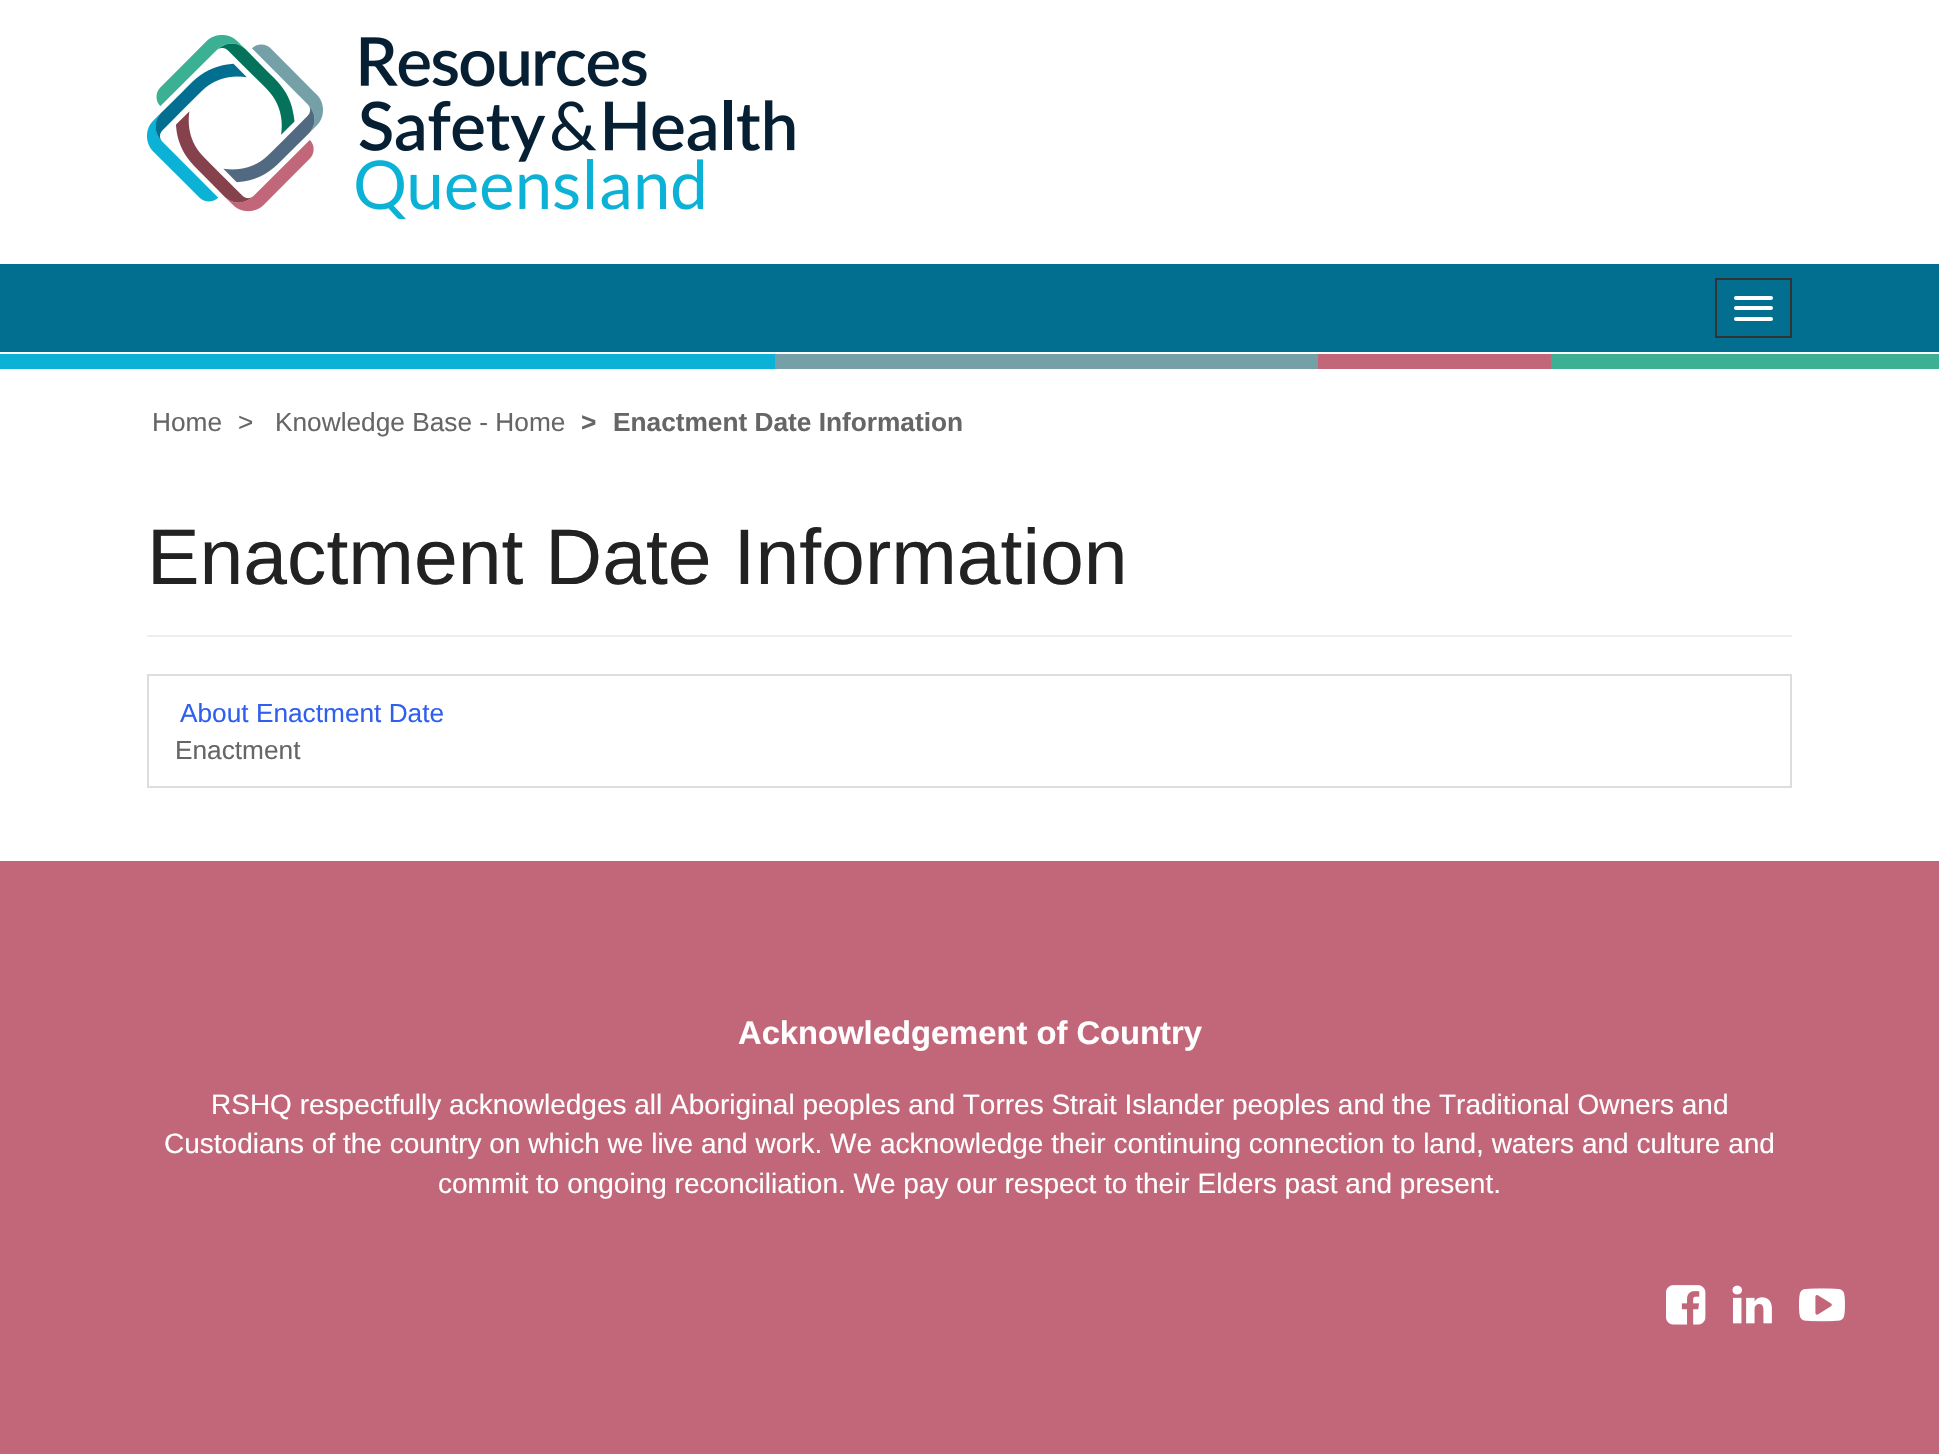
#include "include/core/SkBlurTypes.h"
#include "include/core/SkCanvas.h"
#include "include/core/SkData.h"
#include "include/core/SkFont.h"
#include "include/core/SkFontMgr.h"
#include "include/core/SkImage.h"
#include "include/core/SkMaskFilter.h"
#include "include/core/SkPaint.h"
#include "include/core/SkPathBuilder.h"
#include "include/core/SkTextBlob.h"
#include "include/effects/SkDashPathEffect.h"
#include "include/effects/SkGradientShader.h"
#include "include/utils/SkParsePath.h"

extern sk_sp<SkFontMgr> fontMgr;

static SkFont font(const char* family, int weight, float size, bool italic = false) {
    SkFontStyle style(weight, SkFontStyle::kNormal_Width,
        italic ? SkFontStyle::kItalic_Slant : SkFontStyle::kUpright_Slant);
    SkFont result(fontMgr->matchFamilyStyle(family, style), size);
    result.setSubpixel(true);
    return result;
}

static void drawLabel(SkCanvas* canvas, const char* s, float x, float y, const SkFont& font, SkColor color) {
    SkPaint ink(SkColor4f::FromColor(color));
    ink.setAntiAlias(true);
    canvas->drawString(s, x, y, font, ink);
}

static void fillRect(SkCanvas* canvas, float x, float y, float w, float h, SkColor color) {
    SkPaint ink(SkColor4f::FromColor(color));
    ink.setAntiAlias(true);
    canvas->drawRect(SkRect::MakeXYWH(x, y, w, h), ink);
}

static void fillRRect(SkCanvas* canvas, float x, float y, float w, float h, float radius, SkColor color) {
    SkPaint ink(SkColor4f::FromColor(color));
    ink.setAntiAlias(true);
    canvas->drawRoundRect(SkRect::MakeXYWH(x, y, w, h), radius, radius, ink);
}

static void drawPhoto(SkCanvas* canvas, const char* path, float x, float y, float w, float h) {
    auto image = SkImages::DeferredFromEncodedData(SkData::MakeFromFileName(path));
    canvas->drawImageRect(image, SkRect::MakeXYWH(x, y, w, h), SkSamplingOptions());
}

void draw(SkCanvas* canvas) {
    SkPaint paint;
    paint.setAntiAlias(true);
    canvas->clear(0xFFFFFFFF);
    fillRect(canvas, 0, 264, 1939, 88, 0xFF026F90);
    drawPhoto(canvas, "assets/img1.png", 147, 35, 648, 184);
    paint.setStroke(true);
    paint.setStrokeWidth(2);
    paint.setColor(0xFF333333);
    canvas->drawRect(SkRect::MakeXYWH(1716, 279, 75, 58), paint);
    fillRRect(canvas, 1734, 296, 39, 4, 2, 0xFFFFFFFF);
    fillRRect(canvas, 1734, 306, 39, 4, 2, 0xFFFFFFFF);
    fillRRect(canvas, 1734, 317, 39, 4, 2, 0xFFFFFFFF);
    fillRect(canvas, 0, 354, 775, 15, 0xFF0CB1D6);
    fillRect(canvas, 775, 354, 543, 15, 0xFF76A0A8);
    fillRect(canvas, 1318, 354, 233, 15, 0xFFC2667A);
    fillRect(canvas, 1551, 354, 388, 15, 0xFF3CB092);
    SkFont font1 = font("Liberation Sans", 400, 26.25f);
    drawLabel(canvas, "Home", 152, 431, font1, 0xFF666666);
    drawLabel(canvas, ">", 238, 431, font1, 0xFF666666);
    drawLabel(canvas, "Knowledge Base - Home", 275, 431, font1, 0xFF666666);
    SkFont font2 = font("Liberation Sans", 700, 26.25f);
    drawLabel(canvas, ">", 581, 431, font2, 0xFF666666);
    drawLabel(canvas, "Enactment Date Information", 613, 431, font2, 0xFF666666);
    fillRect(canvas, 147, 635, 1645, 2, 0xFFEEEEEE);
    SkFont font3 = font("Liberation Sans", 400, 78.75f);
    drawLabel(canvas, "Enactment Date Information", 147, 584, font3, 0xFF232222);
    paint.setColor(0xFFDDDDDD);
    canvas->drawRect(SkRect::MakeXYWH(148, 675, 1643, 112), paint);
    drawLabel(canvas, "About Enactment Date", 180, 722, font1, 0xFF2F5FEF);
    drawLabel(canvas, "Enactment", 175, 759, font1, 0xFF666666);
    fillRect(canvas, 0, 861, 1939, 593, 0xFFC2667A);
    SkFont font4 = font("Liberation Sans", 700, 32.75f);
    drawLabel(canvas, "Acknowledgement of Country", 738, 1044, font4, 0xFFFFFFFF);
    SkFont font5 = font("Liberation Sans", 400, 28);
    drawLabel(canvas, "RSHQ respectfully acknowledges all Aboriginal peoples and Torres Strait Islander peoples and the Traditional Owners and", 211, 1114, font5, 0xFFFFFFFF);
    drawLabel(canvas, "Custodians of the country on which we live and work. We acknowledge their continuing connection to land, waters and culture and", 164, 1153, font5, 0xFFFFFFFF);
    drawLabel(canvas, "commit to ongoing reconciliation. We pay our respect to their Elders past and present.", 438, 1193, font5, 0xFFFFFFFF);
    drawPhoto(canvas, "assets/img2.png", 1666, 1285, 40, 40);
    drawPhoto(canvas, "assets/img3.png", 1732, 1285, 40, 39);
    drawPhoto(canvas, "assets/img4.png", 1799, 1288, 46, 34);
}
